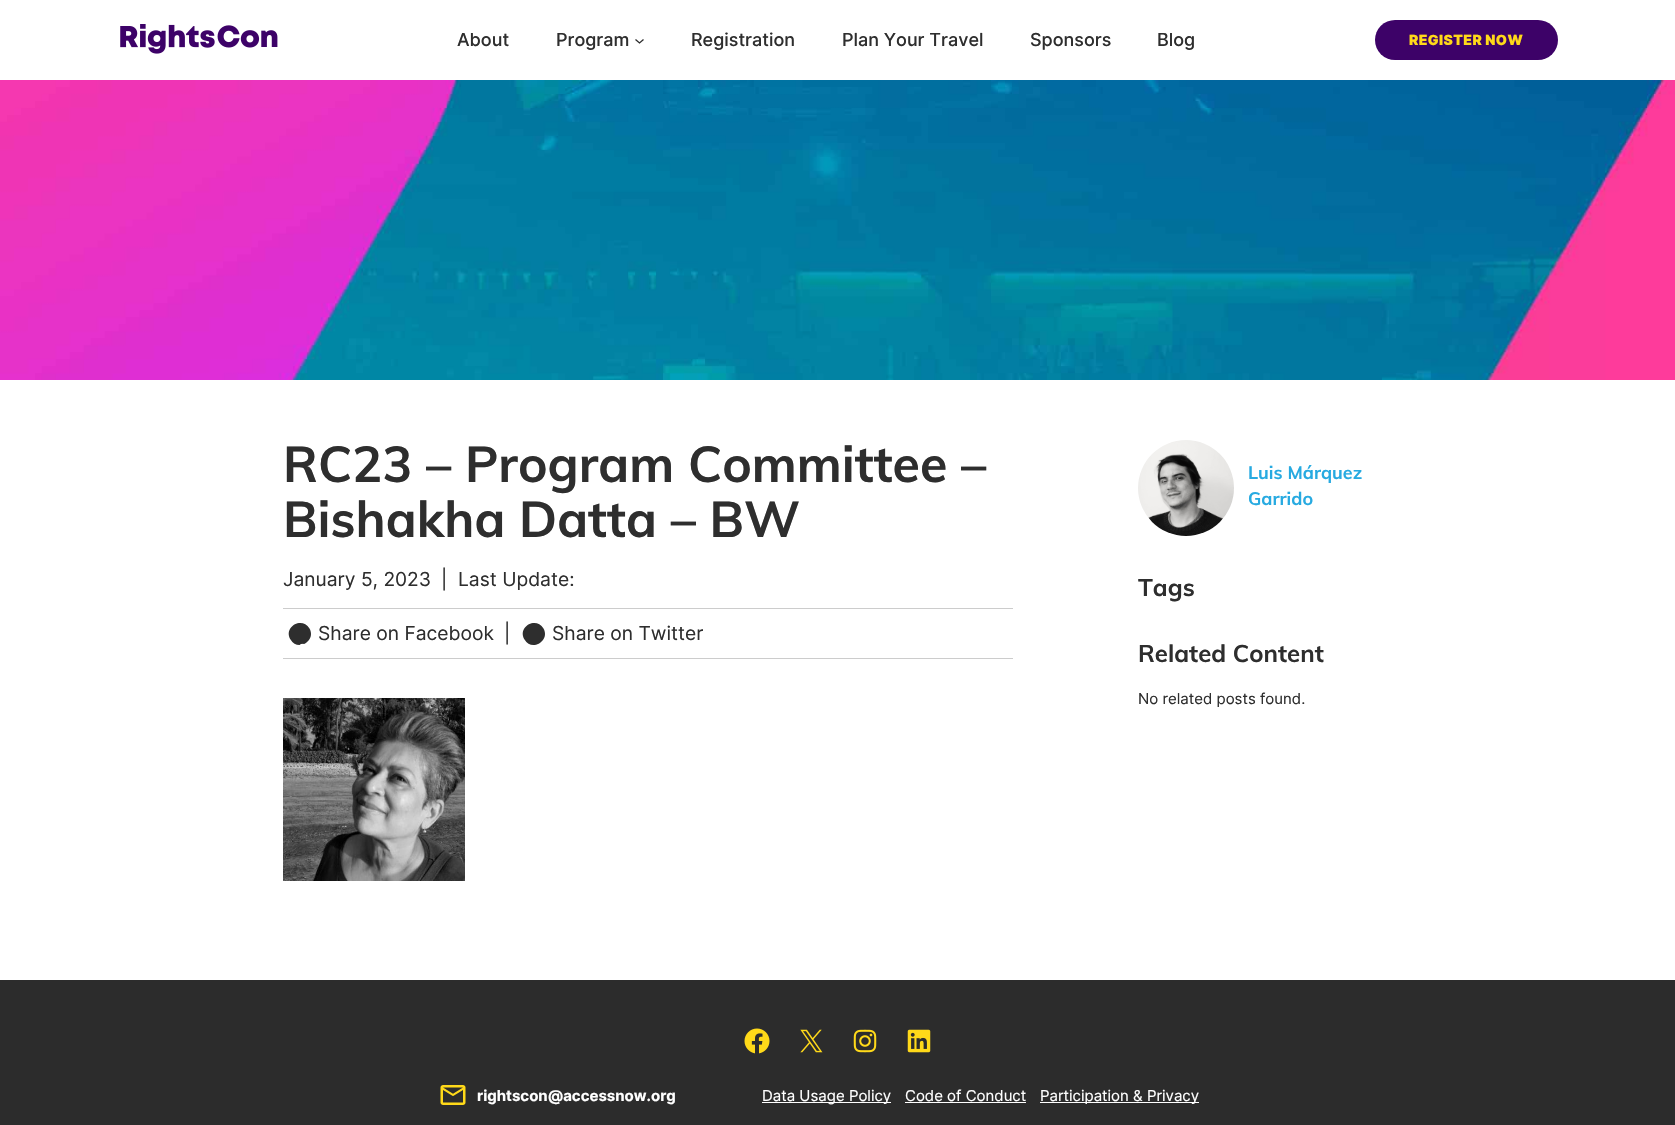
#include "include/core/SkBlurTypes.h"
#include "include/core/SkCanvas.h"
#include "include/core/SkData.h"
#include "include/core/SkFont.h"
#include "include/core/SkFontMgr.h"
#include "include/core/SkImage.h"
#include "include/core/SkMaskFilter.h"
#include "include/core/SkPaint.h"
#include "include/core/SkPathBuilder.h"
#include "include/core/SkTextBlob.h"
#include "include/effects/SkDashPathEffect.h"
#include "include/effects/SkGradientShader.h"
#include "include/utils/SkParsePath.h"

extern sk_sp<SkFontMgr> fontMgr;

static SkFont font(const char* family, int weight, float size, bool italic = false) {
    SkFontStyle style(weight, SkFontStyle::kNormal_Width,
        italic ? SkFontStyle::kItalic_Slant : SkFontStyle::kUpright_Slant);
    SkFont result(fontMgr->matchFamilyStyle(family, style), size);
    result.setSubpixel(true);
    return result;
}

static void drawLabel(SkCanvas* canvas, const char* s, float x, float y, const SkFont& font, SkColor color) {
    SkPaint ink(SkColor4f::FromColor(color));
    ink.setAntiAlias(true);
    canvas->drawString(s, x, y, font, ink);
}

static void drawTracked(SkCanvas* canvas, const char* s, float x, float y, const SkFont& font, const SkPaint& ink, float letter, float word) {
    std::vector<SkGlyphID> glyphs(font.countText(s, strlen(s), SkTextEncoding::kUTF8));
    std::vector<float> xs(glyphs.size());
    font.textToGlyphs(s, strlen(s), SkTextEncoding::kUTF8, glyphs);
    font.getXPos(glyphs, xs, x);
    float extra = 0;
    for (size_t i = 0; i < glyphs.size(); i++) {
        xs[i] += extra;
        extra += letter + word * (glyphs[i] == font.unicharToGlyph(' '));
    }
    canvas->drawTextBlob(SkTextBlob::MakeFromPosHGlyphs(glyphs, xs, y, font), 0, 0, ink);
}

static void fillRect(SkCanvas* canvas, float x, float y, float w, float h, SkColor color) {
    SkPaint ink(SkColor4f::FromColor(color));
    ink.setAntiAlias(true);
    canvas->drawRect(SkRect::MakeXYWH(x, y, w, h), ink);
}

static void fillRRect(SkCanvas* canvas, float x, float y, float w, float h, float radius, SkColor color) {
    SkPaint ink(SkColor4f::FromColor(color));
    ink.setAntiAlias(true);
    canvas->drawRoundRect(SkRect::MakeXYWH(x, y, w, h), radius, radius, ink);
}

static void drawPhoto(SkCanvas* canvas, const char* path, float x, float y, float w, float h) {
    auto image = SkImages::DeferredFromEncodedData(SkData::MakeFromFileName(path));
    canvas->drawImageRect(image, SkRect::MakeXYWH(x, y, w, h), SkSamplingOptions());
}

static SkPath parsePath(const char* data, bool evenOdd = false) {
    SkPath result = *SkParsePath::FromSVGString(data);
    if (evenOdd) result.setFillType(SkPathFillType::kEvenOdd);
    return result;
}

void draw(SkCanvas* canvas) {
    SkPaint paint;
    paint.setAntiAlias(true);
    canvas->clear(0xFFFFFFFF);
    drawPhoto(canvas, "assets/img1.png", 120, 24, 158, 30);
    SkFont font1 = font("Inter", 500, 18);
    drawLabel(canvas, "About", 457, 46, font1, 0xFF2E2E2E);
    drawLabel(canvas, "Program", 556, 46, font1, 0xFF2E2E2E);
    paint.setStroke(true);
    paint.setStrokeWidth(1.3f);
    paint.setColor(0xFF2C2C2C);
    canvas->drawPath(parsePath("M635.5 39.5L639.5 43L643.5 39.5"), paint);
    drawLabel(canvas, "Registration", 691, 46, font1, 0xFF2E2E2E);
    drawLabel(canvas, "Plan Your Travel", 842, 46, font1, 0xFF2E2E2E);
    drawLabel(canvas, "Sponsors", 1030, 46, font1, 0xFF2E2E2E);
    drawLabel(canvas, "Blog", 1157, 46, font1, 0xFF2E2E2E);
    fillRRect(canvas, 1375, 20, 183, 40, 20, 0xFF3D0268);
    SkFont font2 = font("Inter", 900, 14);
    paint.setStroke(false);
    paint.setColor(0xFFFFD919);
    drawTracked(canvas, "REGISTER NOW", 1409, 45, font2, paint, 0.4f, 0);
    drawPhoto(canvas, "assets/img2.png", 0, 80, 1675, 300);
    SkFont font3 = font("Muli", 700, 50);
    drawLabel(canvas, "RC23 – Program Committee –", 283, 482, font3, 0xFF2E2E2E);
    drawLabel(canvas, "Bishakha Datta – BW", 283, 537, font3, 0xFF2E2E2E);
    SkFont font4 = font("Inter", 400, 19.25f);
    drawLabel(canvas, "January 5, 2023", 283, 586, font4, 0xFF2E2E2E);
    drawLabel(canvas, "|", 441, 586, font4, 0xFF2E2E2E);
    drawLabel(canvas, "Last Update:", 458, 586, font4, 0xFF2E2E2E);
    fillRect(canvas, 283, 608, 730, 1, 0xFFCCCCCC);
    fillRect(canvas, 283, 658, 730, 1, 0xFFCCCCCC);
    paint.setColor(0xFF2E2E2E);
    canvas->drawPath(parsePath("M290.5 639.5C283 627 302 616 309.5 628.5C316.5 641 297.5 652 290.5 639.5Z"), paint);
    drawPhoto(canvas, "assets/img3.png", 299, 643, 5, 2);
    drawLabel(canvas, "Share on Facebook", 318, 640, font4, 0xFF2E2E2E);
    drawLabel(canvas, "|", 504, 640, font4, 0xFF2E2E2E);
    canvas->drawPath(parsePath("M524.5 639.5C517 627 536 616 543.5 628.5C550.5 641 531.5 652 524.5 639.5Z"), paint);
    drawLabel(canvas, "Share on Twitter", 552, 640, font4, 0xFF2E2E2E);
    drawPhoto(canvas, "assets/img4.png", 283, 698, 182, 183);
    drawPhoto(canvas, "assets/img5.png", 1138, 440, 96, 96);
    SkFont font5 = font("Muli", 700, 18);
    drawLabel(canvas, "Luis Márquez", 1248, 479, font5, 0xFF27AAE1);
    drawLabel(canvas, "Garrido", 1248, 505, font5, 0xFF27AAE1);
    SkFont font6 = font("Muli", 700, 24);
    drawLabel(canvas, "Tags", 1138, 596, font6, 0xFF2E2E2E);
    drawLabel(canvas, "Related Content", 1138, 662, font6, 0xFF2E2E2E);
    SkFont font7 = font("Inter", 400, 15);
    drawLabel(canvas, "No related posts found.", 1138, 704, font7, 0xFF2E2E2E);
    fillRect(canvas, 0, 980, 1675, 145, 0xFF2C2C2C);
    drawPhoto(canvas, "assets/img6.png", 744, 1028, 26, 26);
    drawPhoto(canvas, "assets/img7.png", 800, 1029, 23, 24);
    drawPhoto(canvas, "assets/img8.png", 853, 1029, 24, 24);
    drawPhoto(canvas, "assets/img9.png", 907, 1029, 24, 24);
    drawPhoto(canvas, "assets/img10.png", 440, 1085, 26, 20);
    SkFont font8 = font("Inter", 700, 15);
    drawLabel(canvas, "rightscon@accessnow.org", 477, 1101, font8, 0xFFFFFFFF);
    fillRect(canvas, 762, 1102, 129, 1, 0xFFFFFFFF);
    drawLabel(canvas, "Data Usage Policy", 762, 1101, font7, 0xFFFFFFFF);
    drawLabel(canvas, "Code of Conduct", 905, 1101, font7, 0xFFFFFFFF);
    fillRect(canvas, 905, 1102, 121, 1, 0xFFFFFFFF);
    fillRect(canvas, 1040, 1102, 159, 1, 0xFFFFFFFF);
    drawLabel(canvas, "Participation & Privacy", 1040, 1101, font7, 0xFFFFFFFF);
}
